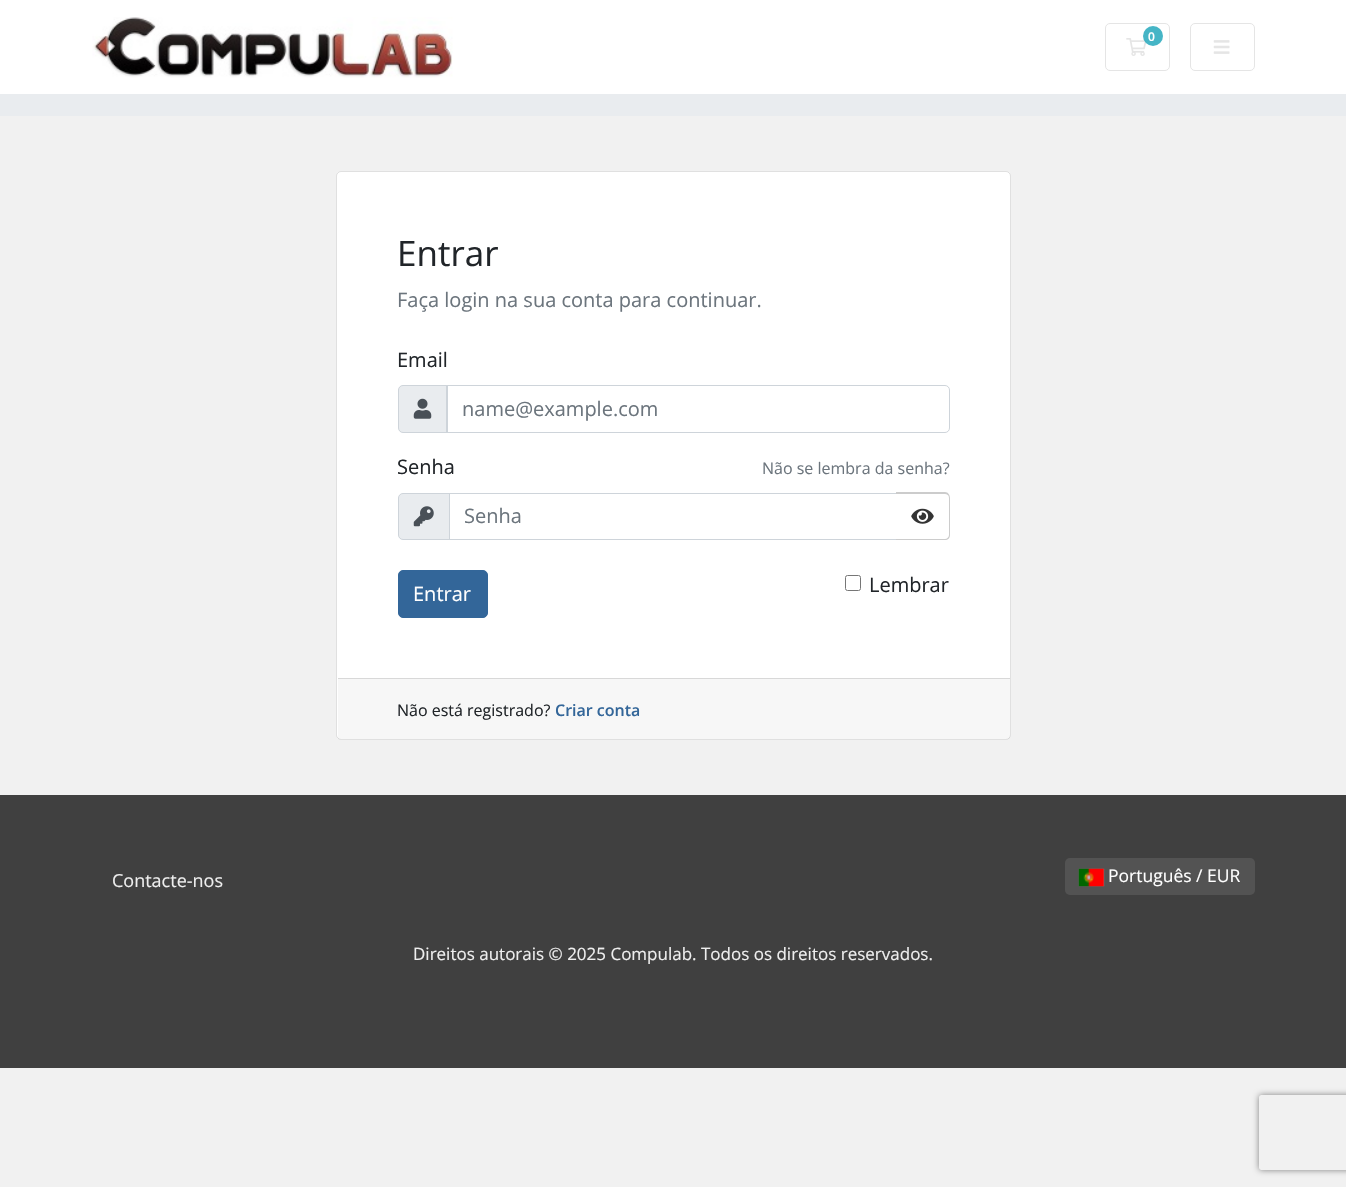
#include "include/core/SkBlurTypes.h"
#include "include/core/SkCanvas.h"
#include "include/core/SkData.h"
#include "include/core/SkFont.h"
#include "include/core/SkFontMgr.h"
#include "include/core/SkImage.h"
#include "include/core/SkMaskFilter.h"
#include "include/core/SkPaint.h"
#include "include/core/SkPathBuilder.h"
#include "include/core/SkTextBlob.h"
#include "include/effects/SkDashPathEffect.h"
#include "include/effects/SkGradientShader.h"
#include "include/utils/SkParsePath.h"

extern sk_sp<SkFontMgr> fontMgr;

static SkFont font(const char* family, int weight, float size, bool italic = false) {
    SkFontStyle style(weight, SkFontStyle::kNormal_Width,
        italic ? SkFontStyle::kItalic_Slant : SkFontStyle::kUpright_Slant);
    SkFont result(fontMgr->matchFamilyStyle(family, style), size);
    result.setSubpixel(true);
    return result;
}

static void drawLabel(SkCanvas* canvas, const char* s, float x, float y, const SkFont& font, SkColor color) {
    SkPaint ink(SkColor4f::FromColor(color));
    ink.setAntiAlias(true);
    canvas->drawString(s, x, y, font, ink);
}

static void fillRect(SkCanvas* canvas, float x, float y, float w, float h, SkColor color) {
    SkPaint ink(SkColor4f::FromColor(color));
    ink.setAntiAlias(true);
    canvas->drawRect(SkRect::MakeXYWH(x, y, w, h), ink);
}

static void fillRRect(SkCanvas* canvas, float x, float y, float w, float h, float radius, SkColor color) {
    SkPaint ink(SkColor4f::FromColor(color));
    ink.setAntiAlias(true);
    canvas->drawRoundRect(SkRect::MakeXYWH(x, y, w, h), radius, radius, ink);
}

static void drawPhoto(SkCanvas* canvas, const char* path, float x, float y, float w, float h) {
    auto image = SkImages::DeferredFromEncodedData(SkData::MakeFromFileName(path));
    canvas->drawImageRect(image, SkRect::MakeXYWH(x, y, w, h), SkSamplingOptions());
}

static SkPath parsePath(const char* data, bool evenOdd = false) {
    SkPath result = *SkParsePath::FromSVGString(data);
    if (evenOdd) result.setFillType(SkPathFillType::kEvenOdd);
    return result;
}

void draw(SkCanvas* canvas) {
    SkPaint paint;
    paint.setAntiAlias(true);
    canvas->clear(0xFFF1F1F1);
    fillRect(canvas, 0, 0, 1346, 94, 0xFFFFFFFF);
    drawPhoto(canvas, "assets/img1.png", 92, 17, 361, 61);
    paint.setStroke(true);
    paint.setStrokeWidth(1);
    paint.setColor(0xFFE5E5E5);
    canvas->drawRoundRect(SkRect::MakeXYWH(1105.5f, 23.5f, 64, 47), 4.5f, 4.5f, paint);
    drawPhoto(canvas, "assets/img2.png", 1126, 38, 21, 18);
    paint.setStroke(false);
    paint.setColor(0xCC17A2B8);
    canvas->drawCircle(1153, 36, 10, paint);
    SkFont font1 = font("Open Sans", 600, 12);
    drawLabel(canvas, "0", 1148, 41, font1, 0xFFFFFFFF);
    paint.setStroke(true);
    paint.setColor(0xFFE5E5E5);
    canvas->drawRoundRect(SkRect::MakeXYWH(1190.5f, 23.5f, 64, 47), 4.5f, 4.5f, paint);
    drawPhoto(canvas, "assets/img3.png", 1213, 40, 17, 14);
    fillRect(canvas, 0, 94, 1346, 22, 0xFFE9ECEF);
    fillRRect(canvas, 336, 171, 675, 569, 5, 0xFFFFFFFF);
    paint.setColor(0x1F000000);
    canvas->drawRoundRect(SkRect::MakeXYWH(336.5f, 171.5f, 674, 568), 4.5f, 4.5f, paint);
    SkFont font2 = font("Open Sans", 400, 35);
    drawLabel(canvas, "Entrar", 397, 266, font2, 0xFF212529);
    SkFont font3 = font("Open Sans", 400, 20);
    drawLabel(canvas, "Faça login na sua conta para continuar.", 397, 307, font3, 0xFF6C757D);
    drawLabel(canvas, "Email", 397, 367, font3, 0xFF212529);
    paint.setStroke(false);
    paint.setColor(0xFFE9ECEF);
    canvas->drawPath(parsePath("M403 385.5H447.5V432.5H403C400.5 432.5 398.5 430.5 398.5 428V390C398.5 387.5 400.5 385.5 403 385.5Z"), paint);
    paint.setStroke(true);
    paint.setColor(0xFFCED4DA);
    canvas->drawPath(parsePath("M403 385.5H447.5V432.5H403C400.5 432.5 398.5 430.5 398.5 428V390C398.5 387.5 400.5 385.5 403 385.5Z"), paint);
    drawPhoto(canvas, "assets/img4.png", 413, 398, 19, 21);
    canvas->drawPath(parsePath("M446.5 385.5H945C947.5 385.5 949.5 387.5 949.5 390V428C949.5 430.5 947.5 432.5 945 432.5H446.5Z"), paint);
    drawLabel(canvas, "name@example.com", 462, 416, font3, 0xFF6C757D);
    drawLabel(canvas, "Senha", 397, 474, font3, 0xFF212529);
    SkFont font4 = font("Open Sans", 400, 16);
    drawLabel(canvas, "Não se lembra da senha?", 762, 474, font4, 0xFF6C757D);
    paint.setStroke(false);
    paint.setColor(0xFFE9ECEF);
    canvas->drawPath(parsePath("M403 493.5H449.5V539.5H403C400.5 539.5 398.5 537.5 398.5 535V498C398.5 495.5 400.5 493.5 403 493.5Z"), paint);
    paint.setStroke(true);
    paint.setColor(0xFFCED4DA);
    canvas->drawPath(parsePath("M403 493.5H449.5V539.5H403C400.5 539.5 398.5 537.5 398.5 535V498C398.5 495.5 400.5 493.5 403 493.5Z"), paint);
    drawPhoto(canvas, "assets/img5.png", 413, 506, 21, 21);
    canvas->drawRect(SkRect::MakeXYWH(449.5f, 493.5f, 448, 46), paint);
    drawLabel(canvas, "Senha", 464, 523, font3, 0xFF6C757D);
    paint.setStroke(false);
    paint.setColor(0xFFFFFFFF);
    canvas->drawPath(parsePath("M896 493H945C948 493 950 495 950 498V535C950 538 948 540 945 540H896Z"), paint);
    paint.setColor(0xFFCCCCCC);
    canvas->drawPath(parsePath("M896 492H945C948 492 950 495 950 498V535C950 538 948 540 945 540H896ZM896 494H945C947 494 949 495 949 498V535C949 537 947 539 945 539H896Z", true), paint);
    drawPhoto(canvas, "assets/img6.png", 911, 508, 23, 16);
    paint.setColor(0xFF336699);
    canvas->drawRoundRect(SkRect::MakeXYWH(398.5f, 570.5f, 89, 47), 4.5f, 4.5f, paint);
    paint.setStroke(true);
    canvas->drawRoundRect(SkRect::MakeXYWH(398.5f, 570.5f, 89, 47), 4.5f, 4.5f, paint);
    drawLabel(canvas, "Entrar", 413, 601, font3, 0xFFFFFFFF);
    paint.setColor(0xFF767676);
    canvas->drawRoundRect(SkRect::MakeXYWH(845.5f, 575.5f, 15, 15), 2, 2, paint);
    drawLabel(canvas, "Lembrar", 869, 592, font3, 0xFF212529);
    fillRect(canvas, 338, 679, 672, 60, 0x08000000);
    fillRect(canvas, 338, 678, 672, 1, 0xFFD8D8D8);
    drawLabel(canvas, "Não está registrado?", 397, 716, font4, 0xFF212529);
    SkFont font5 = font("Open Sans", 600, 16);
    drawLabel(canvas, "Criar conta", 555, 716, font5, 0xFF336699);
    canvas->save();
    canvas->clipPath(parsePath("M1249 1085H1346V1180H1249ZM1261.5 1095H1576.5C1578 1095 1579 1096 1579 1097.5V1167.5C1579 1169 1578 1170 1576.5 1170H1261.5C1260 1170 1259 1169 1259 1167.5V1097.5C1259 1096 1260 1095 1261.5 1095Z", true), true);
    paint.setStroke(false);
    paint.setColor(0xFF808080);
    paint.setMaskFilter(SkMaskFilter::MakeBlur(kNormal_SkBlurStyle, 3));
    canvas->drawRoundRect(SkRect::MakeXYWH(1259, 1095, 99, 75), 2.5f, 2.5f, paint);
    paint.setMaskFilter(nullptr);
    canvas->restore();
    fillRect(canvas, 0, 795, 1346, 273, 0xFF404040);
    SkFont font6 = font("Open Sans", 400, 18);
    drawLabel(canvas, "Contacte-nos", 112, 887, font6, 0xFFEEEEEE);
    fillRRect(canvas, 1065, 858, 190, 37, 5, 0xFF535353);
    paint.setColor(0xFF888888);
    paint.setMaskFilter(SkMaskFilter::MakeBlur(kNormal_SkBlurStyle, 0.5f));
    canvas->drawRect(SkRect::MakeXYWH(1079, 869, 25, 17), paint);
    paint.setMaskFilter(nullptr);
    drawPhoto(canvas, "assets/img7.png", 1078, 868, 26, 19);
    SkFont font7 = font("Open Sans", 400, 17.5f);
    drawLabel(canvas, "Português / EUR", 1108, 882, font7, 0xFFFFFFFF);
    SkFont font8 = font("Open Sans", 400, 17);
    drawLabel(canvas, "Direitos autorais © 2025 Compulab. Todos os direitos reservados.", 413, 960, font8, 0xFFEEEEEE);
}
